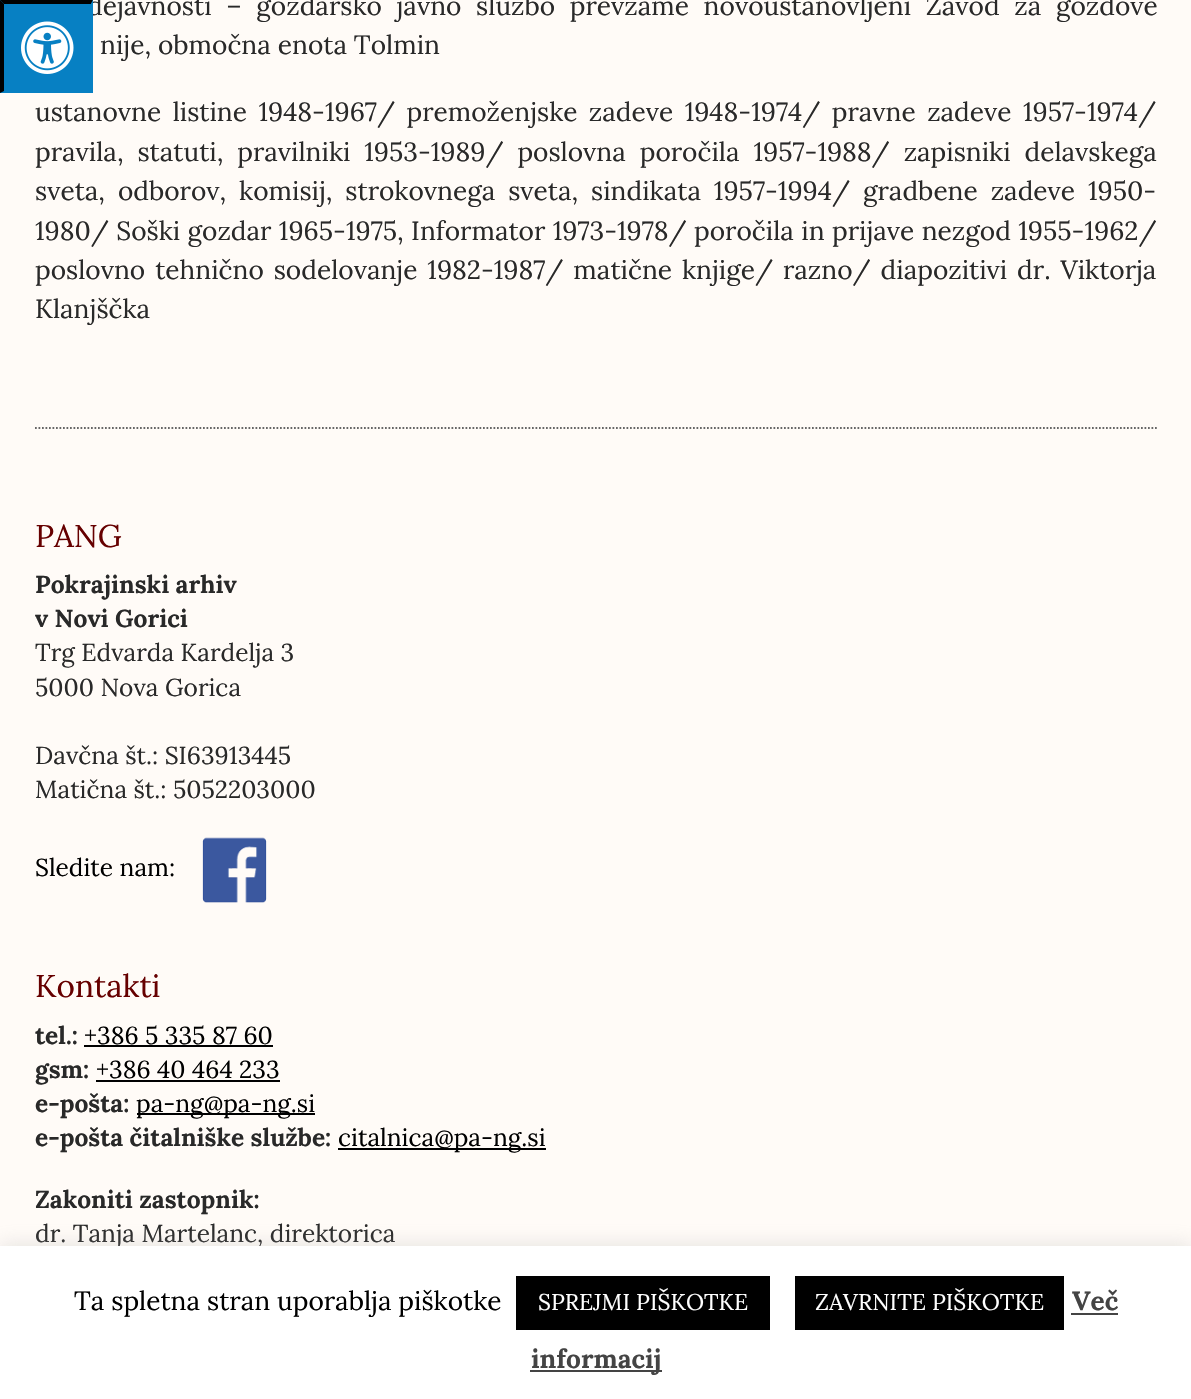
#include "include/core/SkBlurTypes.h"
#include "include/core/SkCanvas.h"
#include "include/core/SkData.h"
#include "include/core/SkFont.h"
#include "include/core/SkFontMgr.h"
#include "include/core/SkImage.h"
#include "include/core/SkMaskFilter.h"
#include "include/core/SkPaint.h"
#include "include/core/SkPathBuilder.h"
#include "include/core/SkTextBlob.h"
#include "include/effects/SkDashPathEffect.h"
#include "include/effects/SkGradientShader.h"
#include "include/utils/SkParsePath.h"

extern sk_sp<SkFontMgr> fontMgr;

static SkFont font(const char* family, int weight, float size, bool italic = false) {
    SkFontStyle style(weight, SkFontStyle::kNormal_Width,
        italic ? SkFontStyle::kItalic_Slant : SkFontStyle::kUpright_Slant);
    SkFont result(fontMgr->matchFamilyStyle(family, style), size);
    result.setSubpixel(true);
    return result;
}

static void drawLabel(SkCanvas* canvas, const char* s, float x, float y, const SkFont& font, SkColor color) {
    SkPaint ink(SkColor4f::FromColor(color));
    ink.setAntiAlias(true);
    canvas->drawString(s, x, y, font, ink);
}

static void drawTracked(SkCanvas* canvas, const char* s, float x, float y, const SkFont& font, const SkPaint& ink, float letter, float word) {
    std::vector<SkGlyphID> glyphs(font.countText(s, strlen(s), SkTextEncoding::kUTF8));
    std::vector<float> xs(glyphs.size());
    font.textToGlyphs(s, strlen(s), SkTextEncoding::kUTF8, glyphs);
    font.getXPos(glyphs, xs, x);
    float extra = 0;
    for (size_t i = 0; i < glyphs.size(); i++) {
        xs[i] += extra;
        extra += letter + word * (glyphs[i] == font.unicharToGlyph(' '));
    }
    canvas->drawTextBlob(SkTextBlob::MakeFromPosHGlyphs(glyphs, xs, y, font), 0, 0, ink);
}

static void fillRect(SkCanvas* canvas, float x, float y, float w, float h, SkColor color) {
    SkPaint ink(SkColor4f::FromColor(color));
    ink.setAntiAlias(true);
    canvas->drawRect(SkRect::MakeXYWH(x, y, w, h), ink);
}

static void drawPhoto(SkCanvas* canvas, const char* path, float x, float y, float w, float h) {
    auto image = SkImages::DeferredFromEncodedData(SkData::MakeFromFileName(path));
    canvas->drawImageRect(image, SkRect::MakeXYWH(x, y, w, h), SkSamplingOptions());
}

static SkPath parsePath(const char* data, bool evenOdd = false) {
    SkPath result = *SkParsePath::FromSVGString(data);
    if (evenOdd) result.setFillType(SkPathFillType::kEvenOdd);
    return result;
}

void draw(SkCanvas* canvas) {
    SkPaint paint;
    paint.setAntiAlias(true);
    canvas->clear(0xFFFFFBF7);
    SkFont font1 = font("Lora", 400, 26.25f);
    paint.setColor(0xFF292929);
    drawTracked(canvas, "dejavnosti – gozdarsko javno službo prevzame novoustanovljeni Zavod za gozdove", 87, 15, font1, paint, 0, 7.75f);
    fillRect(canvas, 0, 0, 93, 93, 0xFF0780C3);
    paint.setColor(0xFF000000);
    canvas->drawPath(parsePath("M0 0H93L91 4H4Z"), paint);
    paint.setColor(0xFF0780C3);
    canvas->drawPath(parsePath("M93 0V93L91 91V4Z"), paint);
    paint.setColor(0xFF000000);
    canvas->drawPath(parsePath("M0 93V0L4 4V91Z"), paint);
    drawPhoto(canvas, "assets/img1.png", 21, 21, 53, 53);
    drawLabel(canvas, "nije, območna enota Tolmin", 100, 54, font1, 0xFF292929);
    paint.setColor(0xFF292929);
    drawTracked(canvas, "ustanovne listine 1948-1967/ premoženjske zadeve 1948-1974/ pravne zadeve 1957-1974/", 35, 121, font1, paint, 0, 4.5f);
    drawTracked(canvas, "pravila, statuti, pravilniki 1953-1989/ poslovna poročila 1957-1988/ zapisniki delavskega", 35, 161, font1, paint, 0, 7);
    drawTracked(canvas, "sveta, odborov, komisij, strokovnega sveta, sindikata 1957-1994/ gradbene zadeve 1950-", 35, 200, font1, paint, 0, 6);
    drawTracked(canvas, "1980/ Soški gozdar 1965-1975, Informator 1973-1978/ poročila in prijave nezgod 1955-1962/", 35, 240, font1, paint, 0, 0.5f);
    drawTracked(canvas, "poslovno tehnično sodelovanje 1982-1987/ matične knjige/ razno/ diapozitivi dr. Viktorja", 35, 279, font1, paint, 0, 3);
    drawLabel(canvas, "Klanjščka", 35, 318, font1, 0xFF292929);
    paint.setStroke(true);
    paint.setStrokeWidth(1.8f);
    paint.setColor(0xFF666666);
    paint.setPathEffect(SkDashPathEffect::Make({{1.75f, 1.75f}}, 0));
    canvas->drawPath(parsePath("M35 428H1157"), paint);
    paint.setPathEffect(nullptr);
    SkFont font2 = font("Lora", 400, 31.5f);
    drawLabel(canvas, "PANG", 35, 547, font2, 0xFF660000);
    SkFont font3 = font("Lora", 700, 24.5f);
    drawLabel(canvas, "Pokrajinski arhiv", 35, 593, font3, 0xFF292929);
    drawLabel(canvas, "v Novi Gorici", 35, 627, font3, 0xFF292929);
    SkFont font4 = font("Lora", 400, 24.5f);
    drawLabel(canvas, "Trg Edvarda Kardelja 3", 35, 661, font4, 0xFF292929);
    drawLabel(canvas, "5000 Nova Gorica", 35, 696, font4, 0xFF292929);
    drawLabel(canvas, "Davčna št.: SI63913445", 35, 764, font4, 0xFF292929);
    drawLabel(canvas, "Matična št.: 5052203000", 35, 798, font4, 0xFF292929);
    drawLabel(canvas, "Sledite nam:", 35, 876, font4, 0xFF000000);
    drawPhoto(canvas, "assets/img2.png", 202, 837, 65, 66);
    drawLabel(canvas, "Kontakti", 35, 997, font2, 0xFF660000);
    drawLabel(canvas, "tel.:", 35, 1044, font3, 0xFF292929);
    drawLabel(canvas, "+386 5 335 87 60", 84, 1044, font4, 0xFF000000);
    fillRect(canvas, 84, 1045, 189, 2, 0xFF000000);
    drawLabel(canvas, "gsm:", 35, 1078, font3, 0xFF292929);
    drawLabel(canvas, "+386 40 464 233", 96, 1078, font4, 0xFF000000);
    fillRect(canvas, 96, 1080, 184, 2, 0xFF000000);
    drawLabel(canvas, "e-pošta:", 35, 1112, font3, 0xFF292929);
    fillRect(canvas, 137, 1113, 178, 2, 0xFF000000);
    drawLabel(canvas, "pa-ng@pa-ng.si", 136, 1112, font4, 0xFF000000);
    drawLabel(canvas, "e-pošta čitalniške službe:", 35, 1146, font3, 0xFF292929);
    fillRect(canvas, 338, 1148, 208, 2, 0xFF000000);
    drawLabel(canvas, "citalnica@pa-ng.si", 338, 1146, font4, 0xFF000000);
    drawLabel(canvas, "Zakoniti zastopnik:", 35, 1208, font3, 0xFF292929);
    drawLabel(canvas, "dr. Tanja Martelanc, direktorica", 35, 1242, font4, 0xFF292929);
    paint.setStroke(false);
    paint.setColor(0x4DACABAB);
    paint.setMaskFilter(SkMaskFilter::MakeBlur(kNormal_SkBlurStyle, 9));
    canvas->drawRect(SkRect::MakeXYWH(0, 1244, 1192, 154), paint);
    paint.setMaskFilter(nullptr);
    fillRect(canvas, 0, 1246, 1191, 153, 0xFFFFFFFF);
    drawLabel(canvas, "Ta spletna stran uporablja piškotke", 74, 1310, font1, 0xFF000000);
    fillRect(canvas, 516, 1276, 254, 54, 0xFF000000);
    SkFont font5 = font("Lora", 400, 22.75f);
    drawLabel(canvas, "SPREJMI PIŠKOTKE", 538, 1310, font5, 0xFFFFFFFF);
    fillRect(canvas, 795, 1276, 269, 54, 0xFF000000);
    drawLabel(canvas, "ZAVRNITE PIŠKOTKE", 815, 1310, font5, 0xFFFFFFFF);
    SkFont font6 = font("Lora", 700, 26.25f);
    drawLabel(canvas, "Več", 1072, 1310, font6, 0xFF444444);
    fillRect(canvas, 1071, 1313, 47, 2, 0xFF444444);
    fillRect(canvas, 530, 1370, 132, 2, 0xFF444444);
    drawLabel(canvas, "informacij", 531, 1368, font6, 0xFF444444);
}
